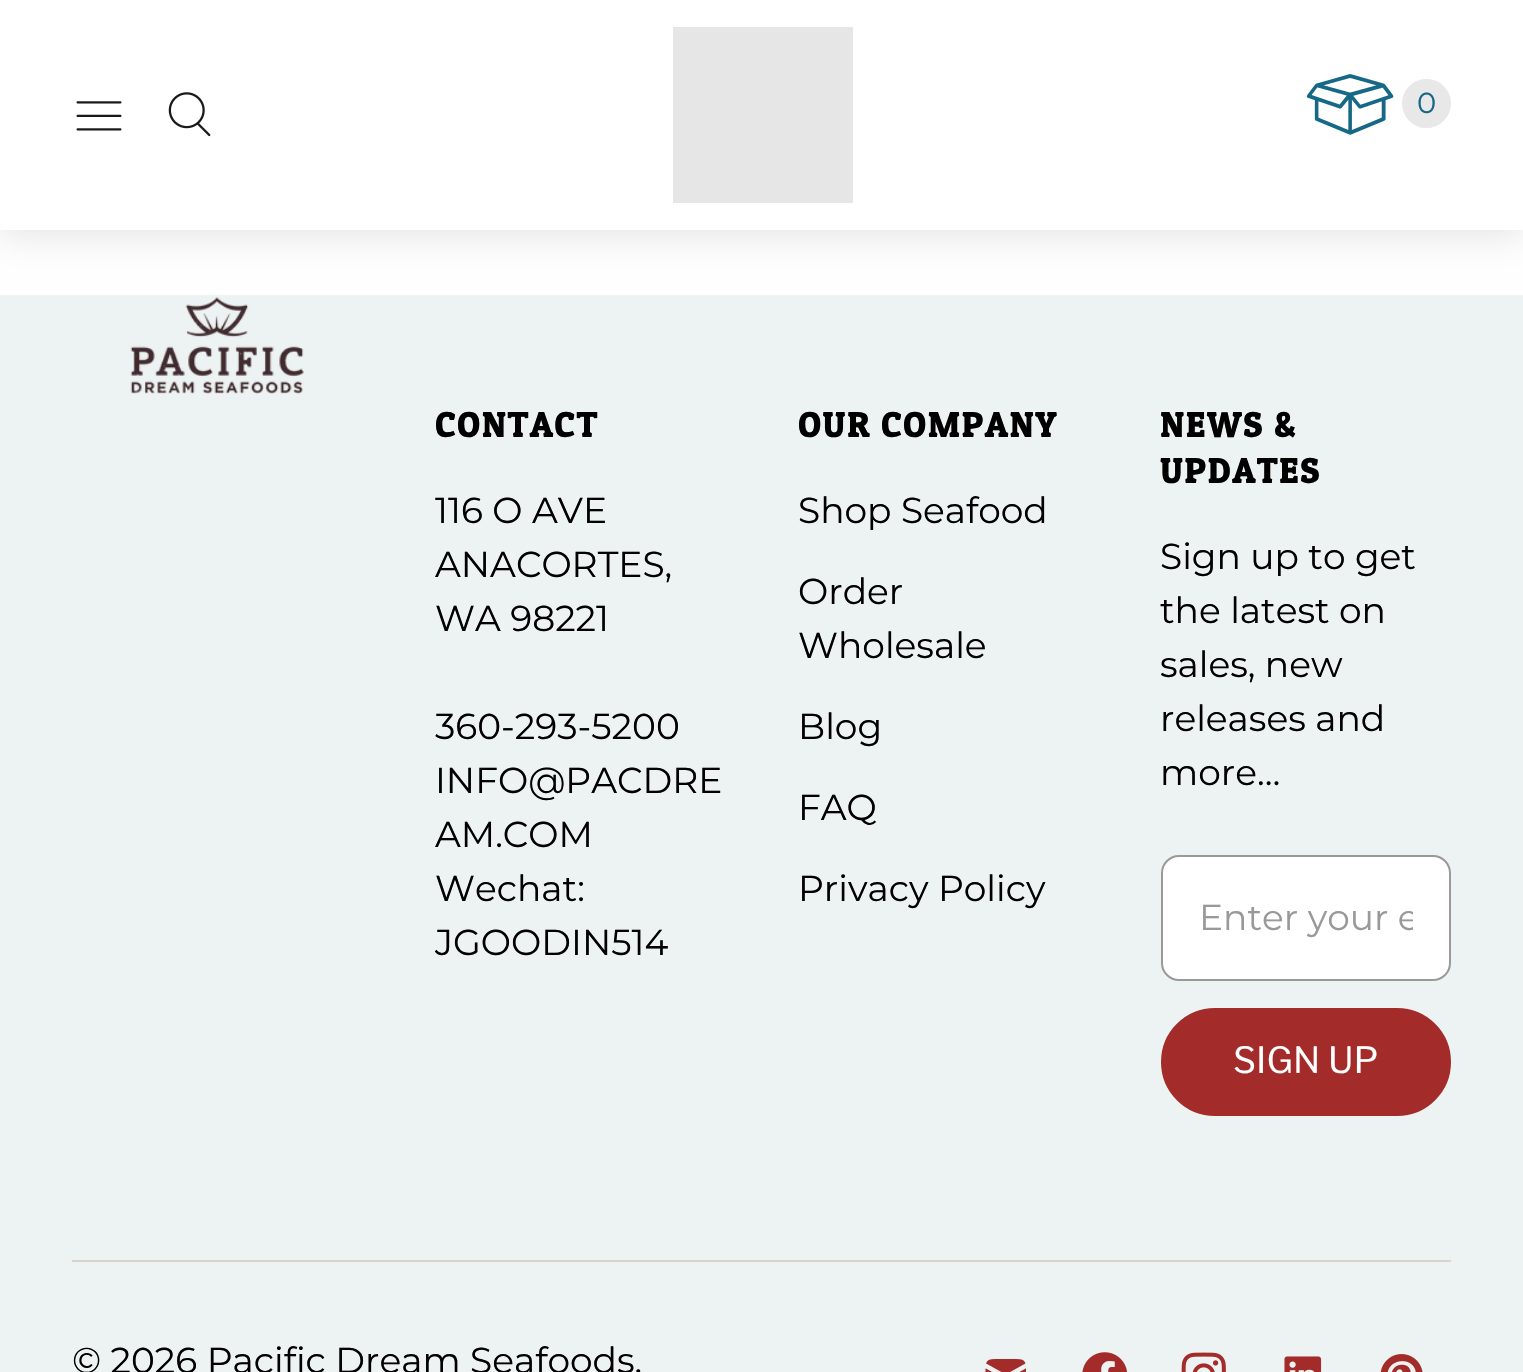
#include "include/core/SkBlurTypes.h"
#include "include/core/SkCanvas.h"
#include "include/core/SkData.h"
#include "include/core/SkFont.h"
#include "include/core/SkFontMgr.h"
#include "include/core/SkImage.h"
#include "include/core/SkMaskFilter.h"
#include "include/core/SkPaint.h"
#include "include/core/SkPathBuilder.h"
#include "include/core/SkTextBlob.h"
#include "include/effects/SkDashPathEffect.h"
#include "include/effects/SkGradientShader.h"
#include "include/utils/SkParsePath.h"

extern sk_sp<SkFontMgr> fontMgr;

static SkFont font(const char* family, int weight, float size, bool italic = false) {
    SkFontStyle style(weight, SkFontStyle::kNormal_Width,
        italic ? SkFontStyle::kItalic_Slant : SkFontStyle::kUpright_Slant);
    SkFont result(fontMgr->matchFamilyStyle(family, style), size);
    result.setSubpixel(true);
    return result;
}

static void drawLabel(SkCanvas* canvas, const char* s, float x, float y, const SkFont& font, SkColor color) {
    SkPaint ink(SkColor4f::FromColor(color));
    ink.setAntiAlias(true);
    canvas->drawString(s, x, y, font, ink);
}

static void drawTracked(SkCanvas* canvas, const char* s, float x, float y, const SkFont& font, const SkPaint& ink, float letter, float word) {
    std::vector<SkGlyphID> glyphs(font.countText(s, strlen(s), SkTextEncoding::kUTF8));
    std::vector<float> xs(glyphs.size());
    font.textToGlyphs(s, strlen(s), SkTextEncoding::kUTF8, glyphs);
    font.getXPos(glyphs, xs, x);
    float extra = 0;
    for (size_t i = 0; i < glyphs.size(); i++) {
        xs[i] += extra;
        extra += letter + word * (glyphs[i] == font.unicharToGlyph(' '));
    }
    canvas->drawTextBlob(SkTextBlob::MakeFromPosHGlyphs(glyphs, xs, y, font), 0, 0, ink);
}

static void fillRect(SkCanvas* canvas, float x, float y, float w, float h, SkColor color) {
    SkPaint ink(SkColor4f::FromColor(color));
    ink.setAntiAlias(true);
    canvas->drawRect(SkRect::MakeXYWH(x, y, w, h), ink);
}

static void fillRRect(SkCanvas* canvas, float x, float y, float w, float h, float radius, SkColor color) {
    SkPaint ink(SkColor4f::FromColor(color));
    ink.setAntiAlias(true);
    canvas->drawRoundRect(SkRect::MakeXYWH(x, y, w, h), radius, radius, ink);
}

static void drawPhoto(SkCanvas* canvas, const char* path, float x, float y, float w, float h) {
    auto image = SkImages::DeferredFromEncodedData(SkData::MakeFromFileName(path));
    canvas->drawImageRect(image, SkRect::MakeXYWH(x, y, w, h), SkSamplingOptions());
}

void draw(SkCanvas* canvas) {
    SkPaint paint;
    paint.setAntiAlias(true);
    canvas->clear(0xFFFFFFFF);
    paint.setColor(0x1A000000);
    paint.setMaskFilter(SkMaskFilter::MakeBlur(kNormal_SkBlurStyle, 18));
    canvas->drawRect(SkRect::MakeXYWH(-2, 2, 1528, 234), paint);
    paint.setMaskFilter(nullptr);
    fillRect(canvas, 0, 0, 1523, 230, 0xFFFFFFFF);
    drawPhoto(canvas, "assets/img1.png", 76, 101, 46, 30);
    drawPhoto(canvas, "assets/img2.png", 168, 92, 43, 45);
    fillRect(canvas, 673, 27, 180, 176, 0xFFE6E6E6);
    drawPhoto(canvas, "assets/img3.png", 1306, 74, 88, 61);
    paint.setColor(0xFFE8E8E8);
    canvas->drawCircle(1426.5f, 103.5f, 24.5f, paint);
    SkFont font1 = font("Montserrat", 400, 29);
    drawLabel(canvas, "0", 1417, 113, font1, 0xFF166886);
    fillRect(canvas, 0, 295, 1523, 1077, 0xFFEDF2F2);
    drawPhoto(canvas, "assets/img4.png", 130, 297, 174, 97);
    SkFont font2 = font("Patua One", 700, 34.75f);
    paint.setColor(0xFF000000);
    drawTracked(canvas, "CONTACT", 435, 437, font2, paint, 2.25f, 0);
    SkFont font3 = font("Montserrat", 400, 36);
    drawLabel(canvas, "116 O AVE", 435, 523, font3, 0xFF000000);
    drawLabel(canvas, "ANACORTES,", 435, 577, font3, 0xFF000000);
    drawLabel(canvas, "WA 98221", 435, 631, font3, 0xFF000000);
    drawLabel(canvas, "360-293-5200", 435, 739, font3, 0xFF000000);
    drawLabel(canvas, "INFO@PACDRE", 435, 793, font3, 0xFF000000);
    drawLabel(canvas, "AM.COM", 435, 847, font3, 0xFF000000);
    drawLabel(canvas, "Wechat:", 435, 901, font3, 0xFF000000);
    drawLabel(canvas, "JGOODIN514", 435, 955, font3, 0xFF000000);
    drawTracked(canvas, "OUR COMPANY", 798, 437, font2, paint, 2.25f, 0);
    drawLabel(canvas, "Shop Seafood", 798, 523, font3, 0xFF000000);
    drawLabel(canvas, "Order", 798, 604, font3, 0xFF000000);
    drawLabel(canvas, "Wholesale", 798, 658, font3, 0xFF000000);
    drawLabel(canvas, "Blog", 798, 739, font3, 0xFF000000);
    drawLabel(canvas, "FAQ", 798, 820, font3, 0xFF000000);
    drawLabel(canvas, "Privacy Policy", 798, 901, font3, 0xFF000000);
    drawTracked(canvas, "NEWS &", 1160, 437, font2, paint, 2.25f, 0);
    drawTracked(canvas, "UPDATES", 1160, 483, font2, paint, 2.25f, 0);
    drawLabel(canvas, "Sign up to get", 1160, 569, font3, 0xFF000000);
    drawLabel(canvas, "the latest on", 1160, 623, font3, 0xFF000000);
    drawLabel(canvas, "sales, new", 1160, 677, font3, 0xFF000000);
    drawLabel(canvas, "releases and", 1160, 731, font3, 0xFF000000);
    drawLabel(canvas, "more…", 1160, 785, font3, 0xFF000000);
    fillRRect(canvas, 1161, 855, 290, 126, 18, 0xFFFFFFFF);
    paint.setStroke(true);
    paint.setStrokeWidth(2);
    paint.setColor(0x66000000);
    canvas->drawRoundRect(SkRect::MakeXYWH(1162, 856, 288, 124), 17, 17, paint);
    canvas->save();
    canvas->clipRect(SkRect::MakeXYWH(1199, 896, 214, 42));
    drawLabel(canvas, "Enter your e", 1199, 930, font3, 0xFF999999);
    canvas->restore();
    paint.setStroke(false);
    paint.setColor(0xFFA32B29);
    canvas->drawRoundRect(SkRect::MakeXYWH(1162, 1009, 288, 106), 53, 53, paint);
    paint.setStroke(true);
    canvas->drawRoundRect(SkRect::MakeXYWH(1162, 1009, 288, 106), 53, 53, paint);
    SkFont font4 = font("Libre Franklin", 400, 36);
    drawLabel(canvas, "SIGN UP", 1233, 1073, font4, 0xFFFFFFFF);
    fillRect(canvas, 72, 1260, 1379, 2, 0xFFD6D4CB);
    drawLabel(canvas, "© 2026 Pacific Dream Seafoods.", 72, 1373, font3, 0xFF000000);
    drawPhoto(canvas, "assets/img5.png", 985, 1359, 41, 13);
    drawPhoto(canvas, "assets/img6.png", 1082, 1352, 45, 20);
    drawPhoto(canvas, "assets/img7.png", 1181, 1352, 45, 20);
    drawPhoto(canvas, "assets/img8.png", 1284, 1356, 38, 16);
    drawPhoto(canvas, "assets/img9.png", 1380, 1354, 43, 18);
}
